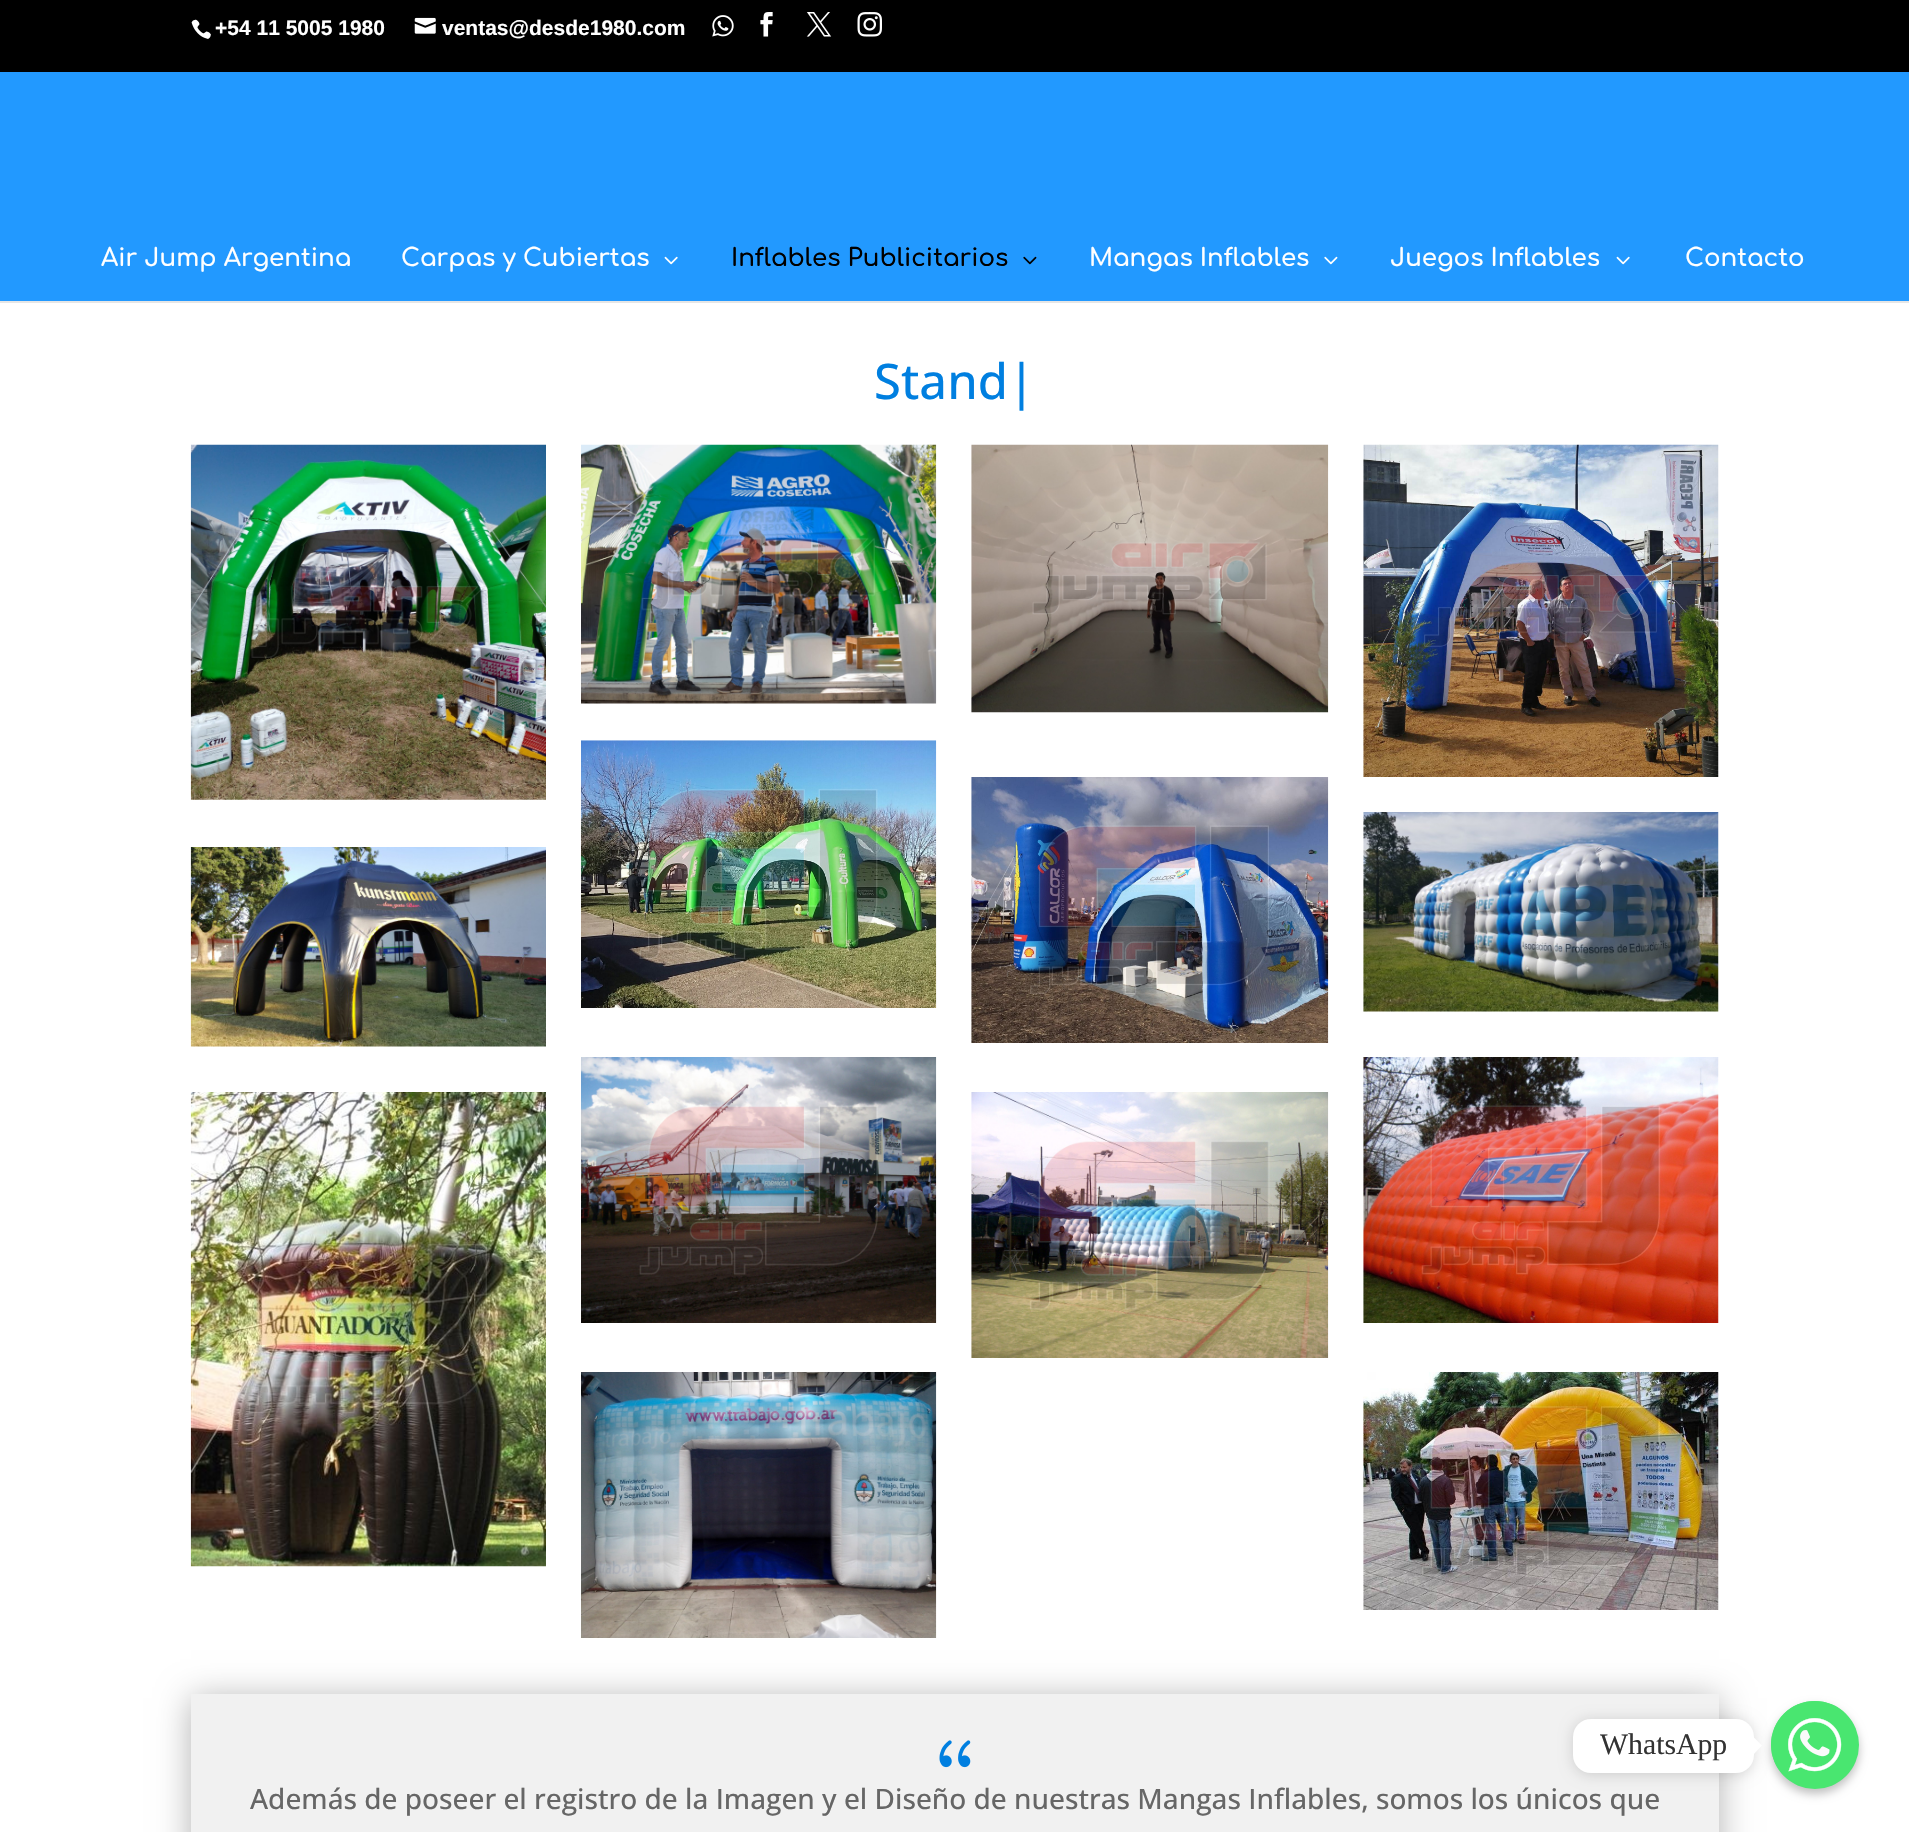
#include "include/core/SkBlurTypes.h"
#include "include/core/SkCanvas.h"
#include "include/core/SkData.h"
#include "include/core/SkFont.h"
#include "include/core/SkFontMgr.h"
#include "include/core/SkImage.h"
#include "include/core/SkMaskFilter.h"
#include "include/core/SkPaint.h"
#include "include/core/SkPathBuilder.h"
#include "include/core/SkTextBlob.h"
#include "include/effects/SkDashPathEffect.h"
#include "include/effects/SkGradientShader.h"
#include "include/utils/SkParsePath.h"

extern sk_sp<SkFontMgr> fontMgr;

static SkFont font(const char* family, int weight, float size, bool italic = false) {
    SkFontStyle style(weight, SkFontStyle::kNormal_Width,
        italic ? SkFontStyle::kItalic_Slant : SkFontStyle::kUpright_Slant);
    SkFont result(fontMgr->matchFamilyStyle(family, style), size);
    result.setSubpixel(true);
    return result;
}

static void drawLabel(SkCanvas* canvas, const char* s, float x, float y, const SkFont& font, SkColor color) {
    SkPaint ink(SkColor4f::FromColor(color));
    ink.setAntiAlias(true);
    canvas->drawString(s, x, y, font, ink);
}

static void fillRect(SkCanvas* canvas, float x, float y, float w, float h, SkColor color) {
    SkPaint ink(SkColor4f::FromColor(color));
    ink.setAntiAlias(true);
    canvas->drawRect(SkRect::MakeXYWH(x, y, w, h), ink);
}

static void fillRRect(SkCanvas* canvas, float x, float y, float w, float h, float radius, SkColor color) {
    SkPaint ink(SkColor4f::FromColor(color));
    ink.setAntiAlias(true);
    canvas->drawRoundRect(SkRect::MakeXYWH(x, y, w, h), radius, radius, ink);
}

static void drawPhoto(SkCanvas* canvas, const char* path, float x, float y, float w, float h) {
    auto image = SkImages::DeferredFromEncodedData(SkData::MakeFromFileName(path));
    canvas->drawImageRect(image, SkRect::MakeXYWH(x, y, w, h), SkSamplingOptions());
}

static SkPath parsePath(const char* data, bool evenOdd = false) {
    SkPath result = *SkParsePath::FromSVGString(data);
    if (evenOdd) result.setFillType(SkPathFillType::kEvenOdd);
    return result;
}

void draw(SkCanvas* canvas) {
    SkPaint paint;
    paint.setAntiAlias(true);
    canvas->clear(0xFFFFFFFF);
    fillRect(canvas, 0, 0, 1909, 72, 0xFF000000);
    drawPhoto(canvas, "assets/img1.png", 191, 19, 20, 20);
    SkFont font1 = font("Liberation Sans", 700, 21);
    drawLabel(canvas, "+54 11 5005 1980", 215, 35, font1, 0xFFFFFFFF);
    drawPhoto(canvas, "assets/img2.png", 414, 17, 22, 17);
    drawLabel(canvas, "ventas@desde1980.com", 442, 35, font1, 0xFFFFFFFF);
    drawPhoto(canvas, "assets/img3.png", 712, 15, 22, 22);
    drawPhoto(canvas, "assets/img4.png", 760, 12, 13, 25);
    drawPhoto(canvas, "assets/img5.png", 806, 12, 26, 25);
    drawPhoto(canvas, "assets/img6.png", 857, 12, 25, 25);
    fillRect(canvas, 0, 301, 1909, 2, 0xFFE6E6E6);
    fillRect(canvas, 0, 72, 1909, 229, 0xFF2299FF);
    SkFont font2 = font("Comfortaa", 600, 24.5f);
    drawLabel(canvas, "Air Jump Argentina", 101, 266, font2, 0xFFFFFFFF);
    drawLabel(canvas, "Carpas y Cubiertas", 401, 266, font2, 0xFFFFFFFF);
    drawPhoto(canvas, "assets/img7.png", 664, 256, 14, 9);
    drawLabel(canvas, "Inflables Publicitarios", 731, 266, font2, 0xFF000000);
    drawPhoto(canvas, "assets/img8.png", 1023, 256, 14, 9);
    drawLabel(canvas, "Mangas Inflables", 1089, 266, font2, 0xFFFFFFFF);
    drawPhoto(canvas, "assets/img9.png", 1324, 256, 14, 9);
    drawLabel(canvas, "Juegos Inflables", 1390, 266, font2, 0xFFFFFFFF);
    drawPhoto(canvas, "assets/img7.png", 1616, 256, 14, 9);
    drawLabel(canvas, "Contacto", 1685, 266, font2, 0xFFFFFFFF);
    SkFont font3 = font("Open Sans", 500, 49);
    drawLabel(canvas, "Stand|", 874, 399, font3, 0xFF007FE0);
    drawPhoto(canvas, "assets/img10.png", 190, 444, 356, 356);
    drawPhoto(canvas, "assets/img11.png", 581, 444, 356, 260);
    drawPhoto(canvas, "assets/img12.png", 971, 444, 358, 269);
    drawPhoto(canvas, "assets/img13.png", 1363, 444, 356, 333);
    drawPhoto(canvas, "assets/img14.png", 190, 847, 356, 200);
    drawPhoto(canvas, "assets/img15.png", 581, 740, 356, 268);
    drawPhoto(canvas, "assets/img16.png", 971, 777, 358, 266);
    drawPhoto(canvas, "assets/img17.png", 1363, 812, 356, 200);
    drawPhoto(canvas, "assets/img18.png", 190, 1092, 356, 475);
    drawPhoto(canvas, "assets/img19.png", 581, 1057, 356, 266);
    drawPhoto(canvas, "assets/img20.png", 971, 1092, 358, 266);
    drawPhoto(canvas, "assets/img21.png", 1363, 1057, 356, 266);
    drawPhoto(canvas, "assets/img22.png", 581, 1372, 356, 266);
    drawPhoto(canvas, "assets/img23.png", 1363, 1372, 356, 238);
    paint.setColor(0x4D000000);
    paint.setMaskFilter(SkMaskFilter::MakeBlur(kNormal_SkBlurStyle, 16));
    canvas->drawRect(SkRect::MakeXYWH(191, 1698, 1528, 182), paint);
    paint.setMaskFilter(nullptr);
    fillRect(canvas, 191, 1694, 1528, 138, 0xFFF1F1F1);
    drawPhoto(canvas, "assets/img24.png", 939, 1740, 32, 28);
    SkFont font4 = font("Open Sans", 500, 28);
    drawLabel(canvas, "Además de poseer el registro de la Imagen y el Diseño de nuestras Mangas Inflables, somos los únicos que", 250, 1809, font4, 0xFF666666);
    paint.setColor(0x40000000);
    paint.setMaskFilter(SkMaskFilter::MakeBlur(kNormal_SkBlurStyle, 5));
    canvas->drawRoundRect(SkRect::MakeXYWH(1771, 1706, 88, 88), 44, 44, paint);
    paint.setMaskFilter(nullptr);
    paint.setColor(0xFF49E670);
    canvas->drawCircle(1815, 1745, 44, paint);
    drawPhoto(canvas, "assets/img25.png", 1771, 1701, 80, 80);
    paint.setColor(0x26000000);
    paint.setMaskFilter(SkMaskFilter::MakeBlur(kNormal_SkBlurStyle, 7));
    canvas->drawRoundRect(SkRect::MakeXYWH(1573, 1720, 181, 55), 18, 18, paint);
    paint.setMaskFilter(nullptr);
    fillRRect(canvas, 1573, 1719, 181, 54, 18, 0xFFFFFFFF);
    SkFont font5 = font("Liberation Serif", 400, 29.75f);
    drawLabel(canvas, "WhatsApp", 1600, 1754, font5, 0xFF333333);
    paint.setColor(0xFFFFFFFF);
    canvas->drawPath(parsePath("M1753.5 1754.5V1737L1762 1745.5Z"), paint);
}
